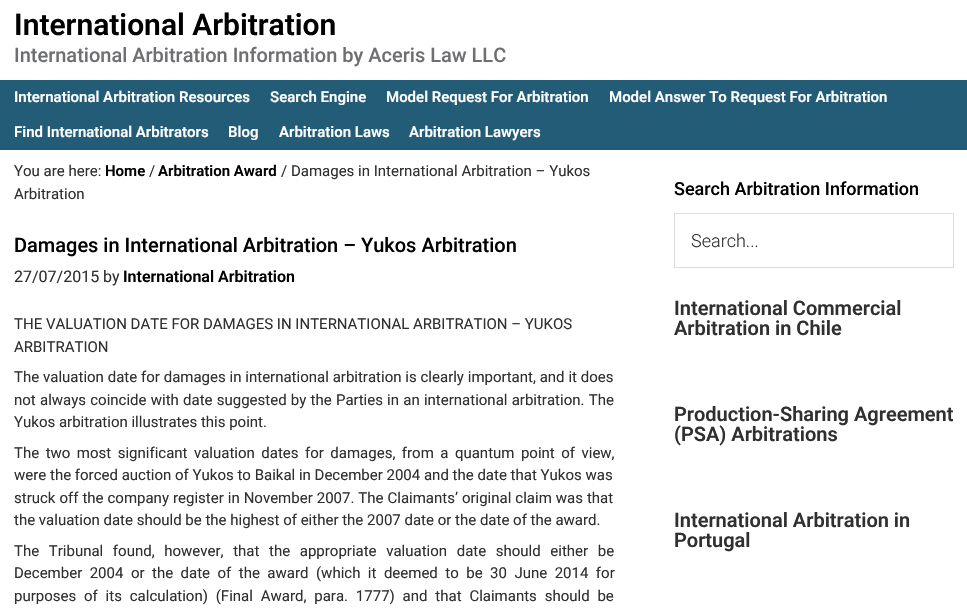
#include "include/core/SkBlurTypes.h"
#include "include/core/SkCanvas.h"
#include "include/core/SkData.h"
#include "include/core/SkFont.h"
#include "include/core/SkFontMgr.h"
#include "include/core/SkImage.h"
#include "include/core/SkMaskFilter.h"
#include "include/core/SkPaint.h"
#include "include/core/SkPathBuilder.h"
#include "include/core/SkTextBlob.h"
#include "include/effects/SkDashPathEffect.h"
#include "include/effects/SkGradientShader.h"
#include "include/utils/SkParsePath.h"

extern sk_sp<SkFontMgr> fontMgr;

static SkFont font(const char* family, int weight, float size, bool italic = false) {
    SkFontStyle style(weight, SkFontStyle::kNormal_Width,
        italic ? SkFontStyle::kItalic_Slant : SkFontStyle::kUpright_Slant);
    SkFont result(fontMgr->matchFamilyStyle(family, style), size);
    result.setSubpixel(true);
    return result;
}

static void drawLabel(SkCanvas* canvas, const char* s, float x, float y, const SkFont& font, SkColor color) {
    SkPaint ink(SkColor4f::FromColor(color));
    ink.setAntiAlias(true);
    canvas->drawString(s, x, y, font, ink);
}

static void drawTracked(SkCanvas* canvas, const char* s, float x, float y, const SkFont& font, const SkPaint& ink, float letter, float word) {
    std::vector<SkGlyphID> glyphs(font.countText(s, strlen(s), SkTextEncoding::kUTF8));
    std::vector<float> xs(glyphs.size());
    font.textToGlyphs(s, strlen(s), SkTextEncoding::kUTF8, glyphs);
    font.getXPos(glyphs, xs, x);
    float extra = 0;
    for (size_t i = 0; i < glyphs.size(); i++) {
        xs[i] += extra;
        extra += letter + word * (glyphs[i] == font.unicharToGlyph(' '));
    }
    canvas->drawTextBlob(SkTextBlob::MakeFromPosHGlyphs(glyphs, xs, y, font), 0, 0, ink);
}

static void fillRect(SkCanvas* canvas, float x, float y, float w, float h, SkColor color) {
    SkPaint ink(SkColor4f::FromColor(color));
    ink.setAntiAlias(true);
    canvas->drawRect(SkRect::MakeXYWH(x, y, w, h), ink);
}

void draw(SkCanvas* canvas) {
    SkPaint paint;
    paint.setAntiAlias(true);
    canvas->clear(0xFFFFFFFF);
    SkFont font1 = font("Roboto", 600, 30);
    drawLabel(canvas, "International Arbitration", 14, 35, font1, 0xFF000000);
    SkFont font2 = font("Roboto", 500, 20);
    drawLabel(canvas, "International Arbitration Information by Aceris Law LLC", 14, 62, font2, 0xFF6E6F73);
    fillRect(canvas, 0, 80, 967, 70, 0xFF235C77);
    SkFont font3 = font("Roboto", 600, 15);
    drawLabel(canvas, "International Arbitration Resources", 14, 102, font3, 0xFFFFFFFF);
    drawLabel(canvas, "Search Engine", 270, 102, font3, 0xFFFFFFFF);
    drawLabel(canvas, "Model Request For Arbitration", 386, 102, font3, 0xFFFFFFFF);
    drawLabel(canvas, "Model Answer To Request For Arbitration", 609, 102, font3, 0xFFFFFFFF);
    drawLabel(canvas, "Find International Arbitrators", 14, 137, font3, 0xFFFFFFFF);
    drawLabel(canvas, "Blog", 228, 137, font3, 0xFFFFFFFF);
    drawLabel(canvas, "Arbitration Laws", 279, 137, font3, 0xFFFFFFFF);
    drawLabel(canvas, "Arbitration Lawyers", 409, 137, font3, 0xFFFFFFFF);
    SkFont font4 = font("Roboto", 400, 15);
    drawLabel(canvas, "You are here:", 14, 176, font4, 0xFF303030);
    drawLabel(canvas, "Home", 105, 176, font3, 0xFF000000);
    drawLabel(canvas, "/", 149, 176, font4, 0xFF303030);
    drawLabel(canvas, "Arbitration Award", 158, 176, font3, 0xFF000000);
    drawLabel(canvas, "/ Damages in International Arbitration – Yukos", 281, 176, font4, 0xFF303030);
    drawLabel(canvas, "Arbitration", 14, 199, font4, 0xFF303030);
    drawLabel(canvas, "Damages in International Arbitration – Yukos Arbitration", 14, 252, font2, 0xFF000000);
    SkFont font5 = font("Roboto", 400, 16);
    drawLabel(canvas, "27/07/2015 by", 14, 282, font5, 0xFF303030);
    SkFont font6 = font("Roboto", 600, 16);
    drawLabel(canvas, "International Arbitration", 123, 282, font6, 0xFF000000);
    drawLabel(canvas, "THE VALUATION DATE FOR DAMAGES IN INTERNATIONAL ARBITRATION – YUKOS", 14, 329, font4, 0xFF303030);
    drawLabel(canvas, "ARBITRATION", 14, 352, font4, 0xFF303030);
    paint.setColor(0xFF303030);
    drawTracked(canvas, "The valuation date for damages in international arbitration is clearly important, and it does", 14, 382, font4, paint, 0, 0.1f);
    drawTracked(canvas, "not always coincide with date suggested by the Parties in an international arbitration. The", 14, 405, font4, paint, 0, 0.5f);
    drawLabel(canvas, "Yukos arbitration illustrates this point.", 14, 427, font4, 0xFF303030);
    drawTracked(canvas, "The two most significant valuation dates for damages, from a quantum point of view,", 14, 458, font4, paint, 0, 2.75f);
    drawLabel(canvas, "were the forced auction of Yukos to Baikal in December 2004 and the date that Yukos was", 14, 480, font4, 0xFF303030);
    drawTracked(canvas, "struck off the company register in November 2007. The Claimants’ original claim was that", 14, 503, font4, paint, 0, 0.25f);
    drawLabel(canvas, "the valuation date should be the highest of either the 2007 date or the date of the award.", 14, 525, font4, 0xFF303030);
    drawTracked(canvas, "The Tribunal found, however, that the appropriate valuation date should either be", 14, 556, font4, paint, 0, 5.9f);
    drawTracked(canvas, "December 2004 or the date of the award (which it deemed to be 30 June 2014 for", 14, 578, font4, paint, 0, 3.75f);
    drawTracked(canvas, "purposes of its calculation) (Final Award, para. 1777) and that Claimants should be", 14, 601, font4, paint, 0, 4.1f);
    SkFont font7 = font("Roboto", 500, 18);
    drawLabel(canvas, "Search Arbitration Information", 674, 195, font7, 0xFF000000);
    paint.setStroke(true);
    paint.setStrokeWidth(1);
    paint.setColor(0xFFDDDDDD);
    canvas->drawRect(SkRect::MakeXYWH(674.5f, 213.5f, 279, 54), paint);
    SkFont font8 = font("Roboto", 300, 18);
    drawLabel(canvas, "Search...", 691, 247, font8, 0xFF303030);
    SkFont font9 = font("Roboto", 600, 20);
    drawLabel(canvas, "International Commercial", 674, 315, font9, 0xFF303030);
    drawLabel(canvas, "Arbitration in Chile", 674, 335, font9, 0xFF303030);
    drawLabel(canvas, "Production-Sharing Agreement", 674, 421, font9, 0xFF303030);
    drawLabel(canvas, "(PSA) Arbitrations", 674, 441, font9, 0xFF303030);
    drawLabel(canvas, "International Arbitration in", 674, 527, font9, 0xFF303030);
    drawLabel(canvas, "Portugal", 674, 547, font9, 0xFF303030);
}
